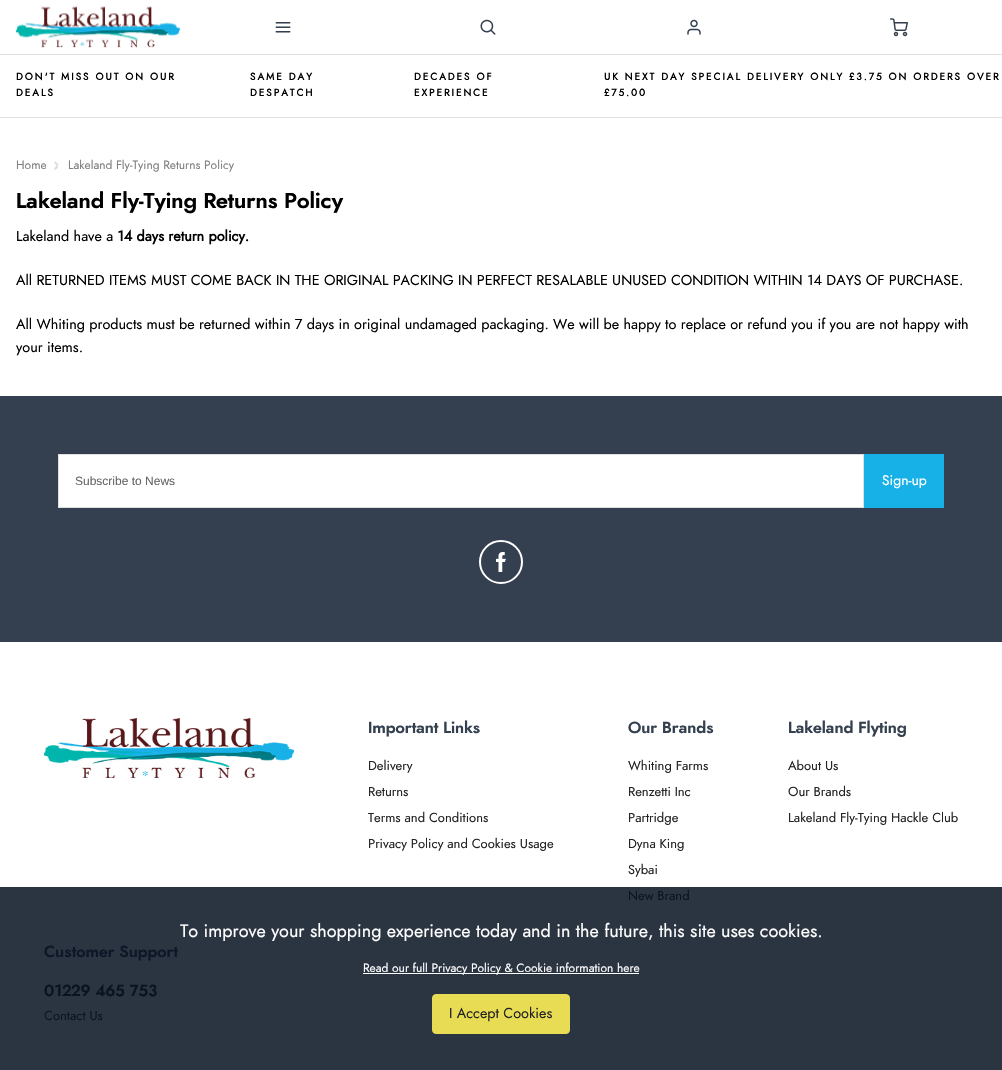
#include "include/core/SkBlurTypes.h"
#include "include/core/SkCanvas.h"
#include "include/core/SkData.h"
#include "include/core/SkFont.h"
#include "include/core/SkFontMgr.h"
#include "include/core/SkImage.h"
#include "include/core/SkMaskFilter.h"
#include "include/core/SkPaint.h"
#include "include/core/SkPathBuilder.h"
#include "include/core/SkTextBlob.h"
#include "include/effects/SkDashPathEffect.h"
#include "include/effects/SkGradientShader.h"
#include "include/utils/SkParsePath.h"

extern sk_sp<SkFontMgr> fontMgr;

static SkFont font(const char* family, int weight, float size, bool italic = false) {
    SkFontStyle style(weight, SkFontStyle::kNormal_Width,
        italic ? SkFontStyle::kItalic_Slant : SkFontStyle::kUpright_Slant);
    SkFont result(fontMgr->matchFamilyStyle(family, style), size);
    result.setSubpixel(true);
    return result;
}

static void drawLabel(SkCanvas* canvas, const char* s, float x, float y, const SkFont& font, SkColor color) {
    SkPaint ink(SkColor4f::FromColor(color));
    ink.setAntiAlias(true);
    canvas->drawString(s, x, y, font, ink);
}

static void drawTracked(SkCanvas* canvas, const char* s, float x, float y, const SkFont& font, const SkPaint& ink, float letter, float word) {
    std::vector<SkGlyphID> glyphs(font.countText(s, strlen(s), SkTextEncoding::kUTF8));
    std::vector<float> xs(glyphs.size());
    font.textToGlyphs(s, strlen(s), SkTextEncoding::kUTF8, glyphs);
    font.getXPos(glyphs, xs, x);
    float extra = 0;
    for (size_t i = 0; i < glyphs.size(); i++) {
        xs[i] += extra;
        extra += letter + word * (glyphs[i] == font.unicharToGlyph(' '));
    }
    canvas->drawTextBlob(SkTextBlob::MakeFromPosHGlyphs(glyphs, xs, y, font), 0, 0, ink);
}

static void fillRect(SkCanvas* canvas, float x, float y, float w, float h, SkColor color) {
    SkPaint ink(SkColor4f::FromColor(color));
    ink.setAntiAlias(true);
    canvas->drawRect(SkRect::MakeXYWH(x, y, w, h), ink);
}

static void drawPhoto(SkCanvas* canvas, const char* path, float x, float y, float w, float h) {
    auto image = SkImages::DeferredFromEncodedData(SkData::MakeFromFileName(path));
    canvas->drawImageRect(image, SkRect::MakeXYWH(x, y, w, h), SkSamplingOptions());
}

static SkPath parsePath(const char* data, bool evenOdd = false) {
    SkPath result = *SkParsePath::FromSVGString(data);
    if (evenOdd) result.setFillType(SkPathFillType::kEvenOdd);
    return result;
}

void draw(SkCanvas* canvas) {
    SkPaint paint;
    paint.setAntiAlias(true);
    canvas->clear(0xFFFFFFFF);
    fillRect(canvas, 0, 887, 1002, 183, 0xFF2B3441);
    fillRect(canvas, 0, 54, 1002, 1, 0xFFE2E2E2);
    drawPhoto(canvas, "assets/img1.png", 16, 6, 164, 42);
    drawPhoto(canvas, "assets/img2.png", 275, 22, 16, 11);
    drawPhoto(canvas, "assets/img3.png", 480, 19, 16, 16);
    drawPhoto(canvas, "assets/img4.png", 687, 19, 14, 16);
    drawPhoto(canvas, "assets/img5.png", 890, 18, 18, 19);
    fillRect(canvas, 0, 117, 1002, 1, 0xFFE2E2E2);
    SkFont font1 = font("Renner", 700, 10);
    paint.setColor(0xFF000000);
    drawTracked(canvas, "DON'T MISS OUT ON OUR", 16, 80, font1, paint, 2, 0);
    drawTracked(canvas, "DEALS", 16, 96, font1, paint, 2, 0);
    drawTracked(canvas, "SAME DAY", 250, 80, font1, paint, 2, 0);
    drawTracked(canvas, "DESPATCH", 250, 96, font1, paint, 2, 0);
    drawTracked(canvas, "DECADES OF", 414, 80, font1, paint, 2, 0);
    drawTracked(canvas, "EXPERIENCE", 414, 96, font1, paint, 2, 0);
    drawTracked(canvas, "UK NEXT DAY SPECIAL DELIVERY ONLY £3.75 ON ORDERS OVER", 604, 80, font1, paint, 2, 0);
    drawTracked(canvas, "£75.00", 604, 96, font1, paint, 2, 0);
    SkFont font2 = font("Renner", 400, 12);
    drawLabel(canvas, "Home", 16, 169, font2, 0xFF808080);
    paint.setColor(0xFFDDDDDD);
    canvas->drawPath(parsePath("M56 162L58 164C58.5 164.5 58.5 165 58 165.5C57 166.5 55 164 54.5 163C53.5 162.5 55 161 56 162Z"), paint);
    canvas->drawPath(parsePath("M54.5 168L56.5 165.5C57 165.5 57.5 165.5 58 166C59 167 56.5 169 56 169.5C55 170.5 53.5 169 54.5 168Z"), paint);
    drawLabel(canvas, "Lakeland Fly-Tying Returns Policy", 68, 169, font2, 0xFF808080);
    SkFont font3 = font("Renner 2", 700, 21.6f);
    drawLabel(canvas, "Lakeland Fly-Tying Returns Policy", 16, 208, font3, 0xFF000000);
    SkFont font4 = font("Renner", 400, 14.4f);
    drawLabel(canvas, "Lakeland have a", 16, 241, font4, 0xFF000000);
    SkFont font5 = font("Renner", 700, 14.4f);
    drawLabel(canvas, "14 days return policy.", 117, 241, font5, 0xFF000000);
    drawLabel(canvas, "All RETURNED ITEMS MUST COME BACK IN THE ORIGINAL PACKING IN PERFECT RESALABLE UNUSED CONDITION WITHIN 14 DAYS OF PURCHASE.", 16, 285, font4, 0xFF000000);
    drawLabel(canvas, "All Whiting products must be returned within 7 days in original undamaged packaging. We will be happy to replace or refund you if you are not happy with", 16, 329, font4, 0xFF000000);
    drawLabel(canvas, "your items.", 16, 352, font4, 0xFF000000);
    fillRect(canvas, 0, 396, 1002, 246, 0xFF34404F);
    paint.setColor(0xFFFFFFFF);
    canvas->drawRect(SkRect::MakeXYWH(58.5f, 454.5f, 805, 53), paint);
    paint.setStroke(true);
    paint.setStrokeWidth(1);
    paint.setColor(0xFFDFDFDF);
    canvas->drawRect(SkRect::MakeXYWH(58.5f, 454.5f, 805, 53), paint);
    SkFont font6 = font("Liberation Sans", 400, 12);
    drawLabel(canvas, "Subscribe to News", 75, 485, font6, 0xFF666666);
    fillRect(canvas, 864, 454, 80, 54, 0xFF17B1E7);
    SkFont font7 = font("Renner", 400, 14);
    drawLabel(canvas, "Sign-up", 882, 485, font7, 0xFFFFFFFF);
    drawPhoto(canvas, "assets/img6.png", 496, 552, 10, 20);
    paint.setStrokeWidth(2);
    paint.setColor(0xFFFFFFFF);
    canvas->drawCircle(501, 562, 21, paint);
    drawPhoto(canvas, "assets/img7.png", 44, 718, 250, 60);
    SkFont font8 = font("Renner 2", 700, 16);
    drawLabel(canvas, "Important Links", 368, 733, font8, 0xFF34404F);
    SkFont font9 = font("Renner", 400, 13);
    drawLabel(canvas, "Delivery", 368, 770, font9, 0xFF222222);
    drawLabel(canvas, "Returns", 368, 796, font9, 0xFF222222);
    drawLabel(canvas, "Terms and Conditions", 368, 822, font9, 0xFF222222);
    drawLabel(canvas, "Privacy Policy and Cookies Usage", 368, 848, font9, 0xFF222222);
    drawLabel(canvas, "Our Brands", 628, 733, font8, 0xFF34404F);
    drawLabel(canvas, "Whiting Farms", 628, 770, font9, 0xFF222222);
    drawLabel(canvas, "Renzetti Inc", 628, 796, font9, 0xFF222222);
    drawLabel(canvas, "Partridge", 628, 822, font9, 0xFF222222);
    drawLabel(canvas, "Dyna King", 628, 848, font9, 0xFF222222);
    drawLabel(canvas, "Sybai", 628, 874, font9, 0xFF222222);
    drawLabel(canvas, "New Brand", 628, 900, font9, 0xFF0A1320);
    drawLabel(canvas, "Lakeland Flyting", 788, 733, font8, 0xFF34404F);
    drawLabel(canvas, "About Us", 788, 770, font9, 0xFF222222);
    drawLabel(canvas, "Our Brands", 788, 796, font9, 0xFF222222);
    drawLabel(canvas, "Lakeland Fly-Tying Hackle Club", 788, 822, font9, 0xFF222222);
    drawLabel(canvas, "Customer Support", 44, 957, font8, 0xFF0D1727);
    drawLabel(canvas, "01229 465 753", 44, 996, font8, 0xFF0A1320);
    drawLabel(canvas, "Contact Us", 44, 1020, font9, 0xFF0A1320);
    SkFont font10 = font("Renner", 400, 18);
    drawLabel(canvas, "To improve your shopping experience today and in the future, this site uses cookies.", 180, 937, font10, 0xFFFFFFFF);
    fillRect(canvas, 363, 973, 276, 1, 0xFFFFFFFF);
    drawLabel(canvas, "Read our full Privacy Policy & Cookie information here", 363, 972, font2, 0xFFFFFFFF);
    paint.setStroke(false);
    paint.setColor(0xFFE8DC54);
    canvas->drawRoundRect(SkRect::MakeXYWH(432.5f, 994.5f, 137, 39), 3.5f, 3.5f, paint);
    paint.setStroke(true);
    paint.setStrokeWidth(1);
    canvas->drawRoundRect(SkRect::MakeXYWH(432.5f, 994.5f, 137, 39), 3.5f, 3.5f, paint);
    drawLabel(canvas, "I Accept Cookies", 449, 1018, font4, 0xFF222222);
}
